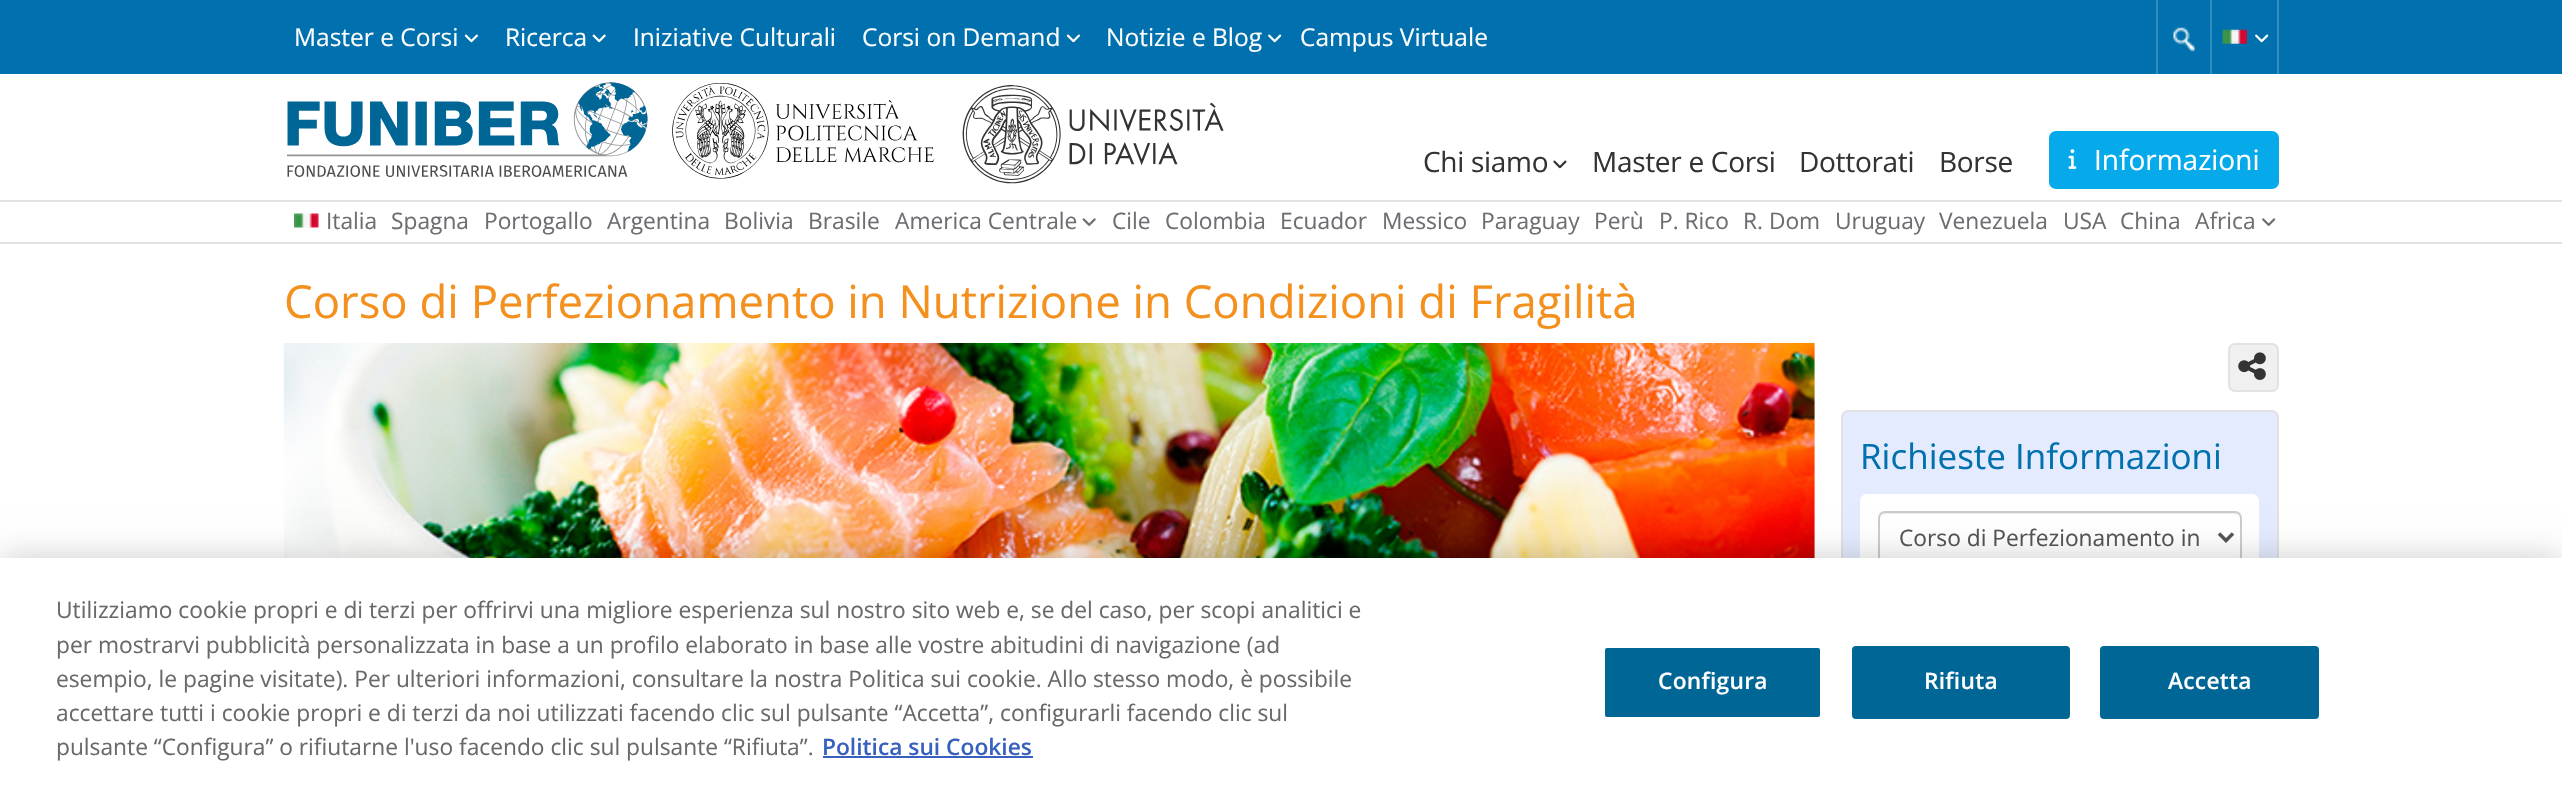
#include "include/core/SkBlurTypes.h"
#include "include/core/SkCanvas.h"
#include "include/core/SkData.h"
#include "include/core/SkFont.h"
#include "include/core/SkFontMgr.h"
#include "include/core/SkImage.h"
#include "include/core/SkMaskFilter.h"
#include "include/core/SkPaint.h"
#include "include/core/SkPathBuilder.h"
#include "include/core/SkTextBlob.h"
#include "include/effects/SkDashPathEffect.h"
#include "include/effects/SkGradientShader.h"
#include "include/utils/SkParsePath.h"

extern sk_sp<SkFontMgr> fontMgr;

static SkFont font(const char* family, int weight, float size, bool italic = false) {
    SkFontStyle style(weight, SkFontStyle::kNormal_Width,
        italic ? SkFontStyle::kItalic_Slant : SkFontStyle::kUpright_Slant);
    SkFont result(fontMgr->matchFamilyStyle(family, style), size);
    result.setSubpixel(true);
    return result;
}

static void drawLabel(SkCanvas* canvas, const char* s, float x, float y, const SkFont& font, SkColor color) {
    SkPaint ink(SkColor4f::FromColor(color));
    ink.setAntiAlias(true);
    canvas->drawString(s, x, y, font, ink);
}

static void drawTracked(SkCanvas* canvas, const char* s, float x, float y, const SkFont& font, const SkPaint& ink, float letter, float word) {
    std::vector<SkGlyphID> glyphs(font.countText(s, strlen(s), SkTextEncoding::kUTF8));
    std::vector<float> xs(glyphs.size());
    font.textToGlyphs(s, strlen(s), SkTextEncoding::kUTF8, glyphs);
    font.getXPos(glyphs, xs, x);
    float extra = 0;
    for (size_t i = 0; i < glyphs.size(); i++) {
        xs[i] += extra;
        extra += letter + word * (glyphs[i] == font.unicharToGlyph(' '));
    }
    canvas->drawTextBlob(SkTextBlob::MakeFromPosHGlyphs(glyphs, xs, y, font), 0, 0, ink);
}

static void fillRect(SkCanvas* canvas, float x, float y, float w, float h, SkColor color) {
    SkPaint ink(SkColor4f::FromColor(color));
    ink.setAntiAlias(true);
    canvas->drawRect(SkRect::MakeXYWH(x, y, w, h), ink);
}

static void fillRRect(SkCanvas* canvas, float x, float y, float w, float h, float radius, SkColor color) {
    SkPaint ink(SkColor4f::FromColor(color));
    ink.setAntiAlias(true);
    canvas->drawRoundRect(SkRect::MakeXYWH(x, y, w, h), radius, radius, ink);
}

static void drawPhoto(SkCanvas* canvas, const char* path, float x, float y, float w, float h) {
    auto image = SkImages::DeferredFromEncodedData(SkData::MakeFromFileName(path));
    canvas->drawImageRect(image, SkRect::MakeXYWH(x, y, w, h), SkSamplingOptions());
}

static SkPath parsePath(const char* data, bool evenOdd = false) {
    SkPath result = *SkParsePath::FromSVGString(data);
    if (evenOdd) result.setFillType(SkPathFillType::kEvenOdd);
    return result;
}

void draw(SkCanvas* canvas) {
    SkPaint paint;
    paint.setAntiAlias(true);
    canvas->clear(0xFFFFFFFF);
    fillRect(canvas, 0, 0, 2562, 74, 0xFF0071AE);
    SkFont font1 = font("Open Sans", 400, 24.5f);
    drawLabel(canvas, "Master e Corsi", 294, 46, font1, 0xFFFFFFFF);
    drawPhoto(canvas, "assets/img1.png", 464, 34, 14, 9);
    drawLabel(canvas, "Ricerca", 505, 46, font1, 0xFFFFFFFF);
    drawPhoto(canvas, "assets/img2.png", 592, 34, 14, 9);
    drawLabel(canvas, "Iniziative Culturali", 633, 46, font1, 0xFFFFFFFF);
    drawLabel(canvas, "Corsi on Demand", 862, 46, font1, 0xFFFFFFFF);
    drawPhoto(canvas, "assets/img1.png", 1066, 34, 14, 9);
    drawLabel(canvas, "Notizie e Blog", 1106, 46, font1, 0xFFFFFFFF);
    drawPhoto(canvas, "assets/img3.png", 1268, 34, 14, 9);
    drawLabel(canvas, "Campus Virtuale", 1300, 46, font1, 0xFFFFFFFF);
    fillRect(canvas, 2156, 0, 2, 74, 0xFF338DBE);
    drawPhoto(canvas, "assets/img4.png", 2173, 27, 22, 25);
    fillRect(canvas, 2277, 0, 2, 74, 0xFF338DBE);
    fillRect(canvas, 2210, 0, 2, 74, 0xFF338DBE);
    drawPhoto(canvas, "assets/img5.png", 2222, 29, 25, 15);
    drawPhoto(canvas, "assets/img3.png", 2255, 34, 14, 9);
    drawPhoto(canvas, "assets/img6.png", 287, 82, 361, 95);
    drawPhoto(canvas, "assets/img7.png", 672, 83, 263, 96);
    drawPhoto(canvas, "assets/img8.png", 962, 85, 262, 99);
    SkFont font2 = font("Open Sans", 400, 28);
    paint.setColor(0xFF333335);
    drawTracked(canvas, "Chi siamo", 1423, 172, font2, paint, -0.3f, 0);
    drawPhoto(canvas, "assets/img9.png", 1553, 160, 14, 9);
    drawTracked(canvas, "Master e Corsi", 1592, 172, font2, paint, -0.3f, 0);
    drawTracked(canvas, "Dottorati", 1799, 172, font2, paint, -0.3f, 0);
    drawTracked(canvas, "Borse", 1939, 172, font2, paint, -0.3f, 0);
    paint.setColor(0xFF06AAEB);
    canvas->drawRoundRect(SkRect::MakeXYWH(2050, 132, 228, 56), 6, 6, paint);
    paint.setStroke(true);
    paint.setStrokeWidth(2);
    canvas->drawRoundRect(SkRect::MakeXYWH(2050, 132, 228, 56), 6, 6, paint);
    drawPhoto(canvas, "assets/img10.png", 2068, 149, 9, 20);
    drawLabel(canvas, "Informazioni", 2094, 170, font2, 0xFFFFFFFF);
    fillRect(canvas, 0, 200, 2562, 2, 0xFFE2E2E3);
    fillRect(canvas, 0, 242, 2562, 2, 0xFFE2E2E3);
    drawPhoto(canvas, "assets/img11.png", 294, 213, 25, 15);
    SkFont font3 = font("Open Sans", 400, 22.75f);
    drawLabel(canvas, "Italia", 326, 229, font3, 0xFF6D6E72);
    drawLabel(canvas, "Spagna", 391, 229, font3, 0xFF6D6E72);
    drawLabel(canvas, "Portogallo", 484, 229, font3, 0xFF6D6E72);
    drawLabel(canvas, "Argentina", 607, 229, font3, 0xFF6D6E72);
    drawLabel(canvas, "Bolivia", 724, 229, font3, 0xFF6D6E72);
    drawLabel(canvas, "Brasile", 808, 229, font3, 0xFF6D6E72);
    drawLabel(canvas, "America Centrale", 895, 229, font3, 0xFF6D6E72);
    drawPhoto(canvas, "assets/img12.png", 1082, 218, 14, 8);
    drawLabel(canvas, "Cile", 1112, 229, font3, 0xFF6D6E72);
    drawLabel(canvas, "Colombia", 1165, 229, font3, 0xFF6D6E72);
    drawLabel(canvas, "Ecuador", 1280, 229, font3, 0xFF6D6E72);
    drawLabel(canvas, "Messico", 1382, 229, font3, 0xFF6D6E72);
    drawLabel(canvas, "Paraguay", 1481, 229, font3, 0xFF6D6E72);
    drawLabel(canvas, "Perù", 1594, 229, font3, 0xFF6D6E72);
    drawLabel(canvas, "P. Rico", 1659, 229, font3, 0xFF6D6E72);
    drawLabel(canvas, "R. Dom", 1743, 229, font3, 0xFF6D6E72);
    drawLabel(canvas, "Uruguay", 1835, 229, font3, 0xFF6D6E72);
    drawLabel(canvas, "Venezuela", 1939, 229, font3, 0xFF6D6E72);
    drawLabel(canvas, "USA", 2063, 229, font3, 0xFF6D6E72);
    drawLabel(canvas, "China", 2120, 229, font3, 0xFF6D6E72);
    drawLabel(canvas, "Africa", 2195, 229, font3, 0xFF6D6E72);
    drawPhoto(canvas, "assets/img13.png", 2262, 218, 14, 8);
    SkFont font4 = font("Open Sans", 400, 45.5f);
    drawLabel(canvas, "Corso di Perfezionamento in Nutrizione in Condizioni di Fragilità", 284, 318, font4, 0xFFF3901E);
    drawPhoto(canvas, "assets/img14.png", 283, 343, 1532, 215);
    paint.setStroke(false);
    paint.setColor(0xFFF0F0F1);
    canvas->drawRoundRect(SkRect::MakeXYWH(2229, 344, 49, 47), 6, 6, paint);
    paint.setStroke(true);
    paint.setColor(0xFFE2E2E3);
    canvas->drawRoundRect(SkRect::MakeXYWH(2229, 344, 49, 47), 6, 6, paint);
    drawPhoto(canvas, "assets/img15.png", 2238, 352, 28, 28);
    paint.setStroke(false);
    paint.setColor(0xFFE5EBFF);
    canvas->drawRoundRect(SkRect::MakeXYWH(1842, 411, 436, 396), 6, 6, paint);
    paint.setStroke(true);
    paint.setColor(0xFFE2E2E3);
    canvas->drawRoundRect(SkRect::MakeXYWH(1842, 411, 436, 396), 6, 6, paint);
    SkFont font5 = font("Open Sans", 400, 35);
    drawLabel(canvas, "Richieste Informazioni", 1860, 469, font5, 0xFF0071AE);
    fillRRect(canvas, 1860, 494, 399, 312, 7, 0xFFFFFFFF);
    paint.setStroke(false);
    paint.setColor(0xFFECECEC);
    canvas->drawPath(parsePath("M1885 514H2235C2238 514 2240 517 2240 520C2240 517 2239 513 2235 513H1885C1881 513 1880 517 1880 520C1880 517 1882 514 1885 514Z"), paint);
    paint.setStroke(true);
    paint.setColor(0xFFCCCCCC);
    canvas->drawRoundRect(SkRect::MakeXYWH(1879, 512, 362, 51), 6, 6, paint);
    paint.setStrokeWidth(3.5f);
    paint.setColor(0xFF555555);
    canvas->drawPath(parsePath("M2219 533.5L2226 540.5L2233 533.5"), paint);
    drawLabel(canvas, "Corso di Perfezionamento in", 1899, 546, font3, 0xFF555555);
    paint.setStroke(false);
    paint.setColor(0x33000000);
    paint.setMaskFilter(SkMaskFilter::MakeBlur(kNormal_SkBlurStyle, 16));
    canvas->drawRect(SkRect::MakeXYWH(0, 558, 2562, 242), paint);
    paint.setMaskFilter(nullptr);
    fillRect(canvas, 0, 558, 2562, 241, 0xFFFFFFFF);
    drawLabel(canvas, "Utilizziamo cookie propri e di terzi per offrirvi una migliore esperienza sul nostro sito web e, se del caso, per scopi analitici e", 56, 618, font3, 0xFF696969);
    drawLabel(canvas, "per mostrarvi pubblicità personalizzata in base a un profilo elaborato in base alle vostre abitudini di navigazione (ad", 56, 653, font3, 0xFF696969);
    drawLabel(canvas, "esempio, le pagine visitate). Per ulteriori informazioni, consultare la nostra Politica sui cookie. Allo stesso modo, è possibile", 56, 687, font3, 0xFF696969);
    drawLabel(canvas, "accettare tutti i cookie propri e di terzi da noi utilizzati facendo clic sul pulsante “Accetta”, configurarli facendo clic sul", 56, 721, font3, 0xFF696969);
    drawLabel(canvas, "pulsante “Configura” o rifiutarne l'uso facendo clic sul pulsante “Rifiuta”.", 56, 755, font3, 0xFF696969);
    SkFont font6 = font("Open Sans", 600, 22.75f);
    drawLabel(canvas, "Politica sui Cookies", 822, 755, font6, 0xFF3860BE);
    fillRect(canvas, 823, 756, 210, 2, 0xFF3860BE);
    paint.setColor(0xFF006696);
    canvas->drawRoundRect(SkRect::MakeXYWH(1604, 647, 217, 71), 3, 3, paint);
    paint.setStroke(true);
    paint.setStrokeWidth(2);
    paint.setColor(0xFFFFFFFF);
    canvas->drawRoundRect(SkRect::MakeXYWH(1604, 647, 217, 71), 3, 3, paint);
    paint.setStroke(false);
    drawTracked(canvas, "Configura", 1658, 689, font6, paint, 0.25f, 0);
    paint.setColor(0xFF006696);
    canvas->drawRoundRect(SkRect::MakeXYWH(1853, 647, 216, 71), 3, 3, paint);
    paint.setStroke(true);
    canvas->drawRoundRect(SkRect::MakeXYWH(1853, 647, 216, 71), 3, 3, paint);
    paint.setStroke(false);
    paint.setColor(0xFFFFFFFF);
    drawTracked(canvas, "Rifiuta", 1924, 689, font6, paint, 0.25f, 0);
    paint.setColor(0xFF006696);
    canvas->drawRoundRect(SkRect::MakeXYWH(2101, 647, 217, 71), 3, 3, paint);
    paint.setStroke(true);
    canvas->drawRoundRect(SkRect::MakeXYWH(2101, 647, 217, 71), 3, 3, paint);
    paint.setStroke(false);
    paint.setColor(0xFFFFFFFF);
    drawTracked(canvas, "Accetta", 2168, 689, font6, paint, 0.25f, 0);
}
